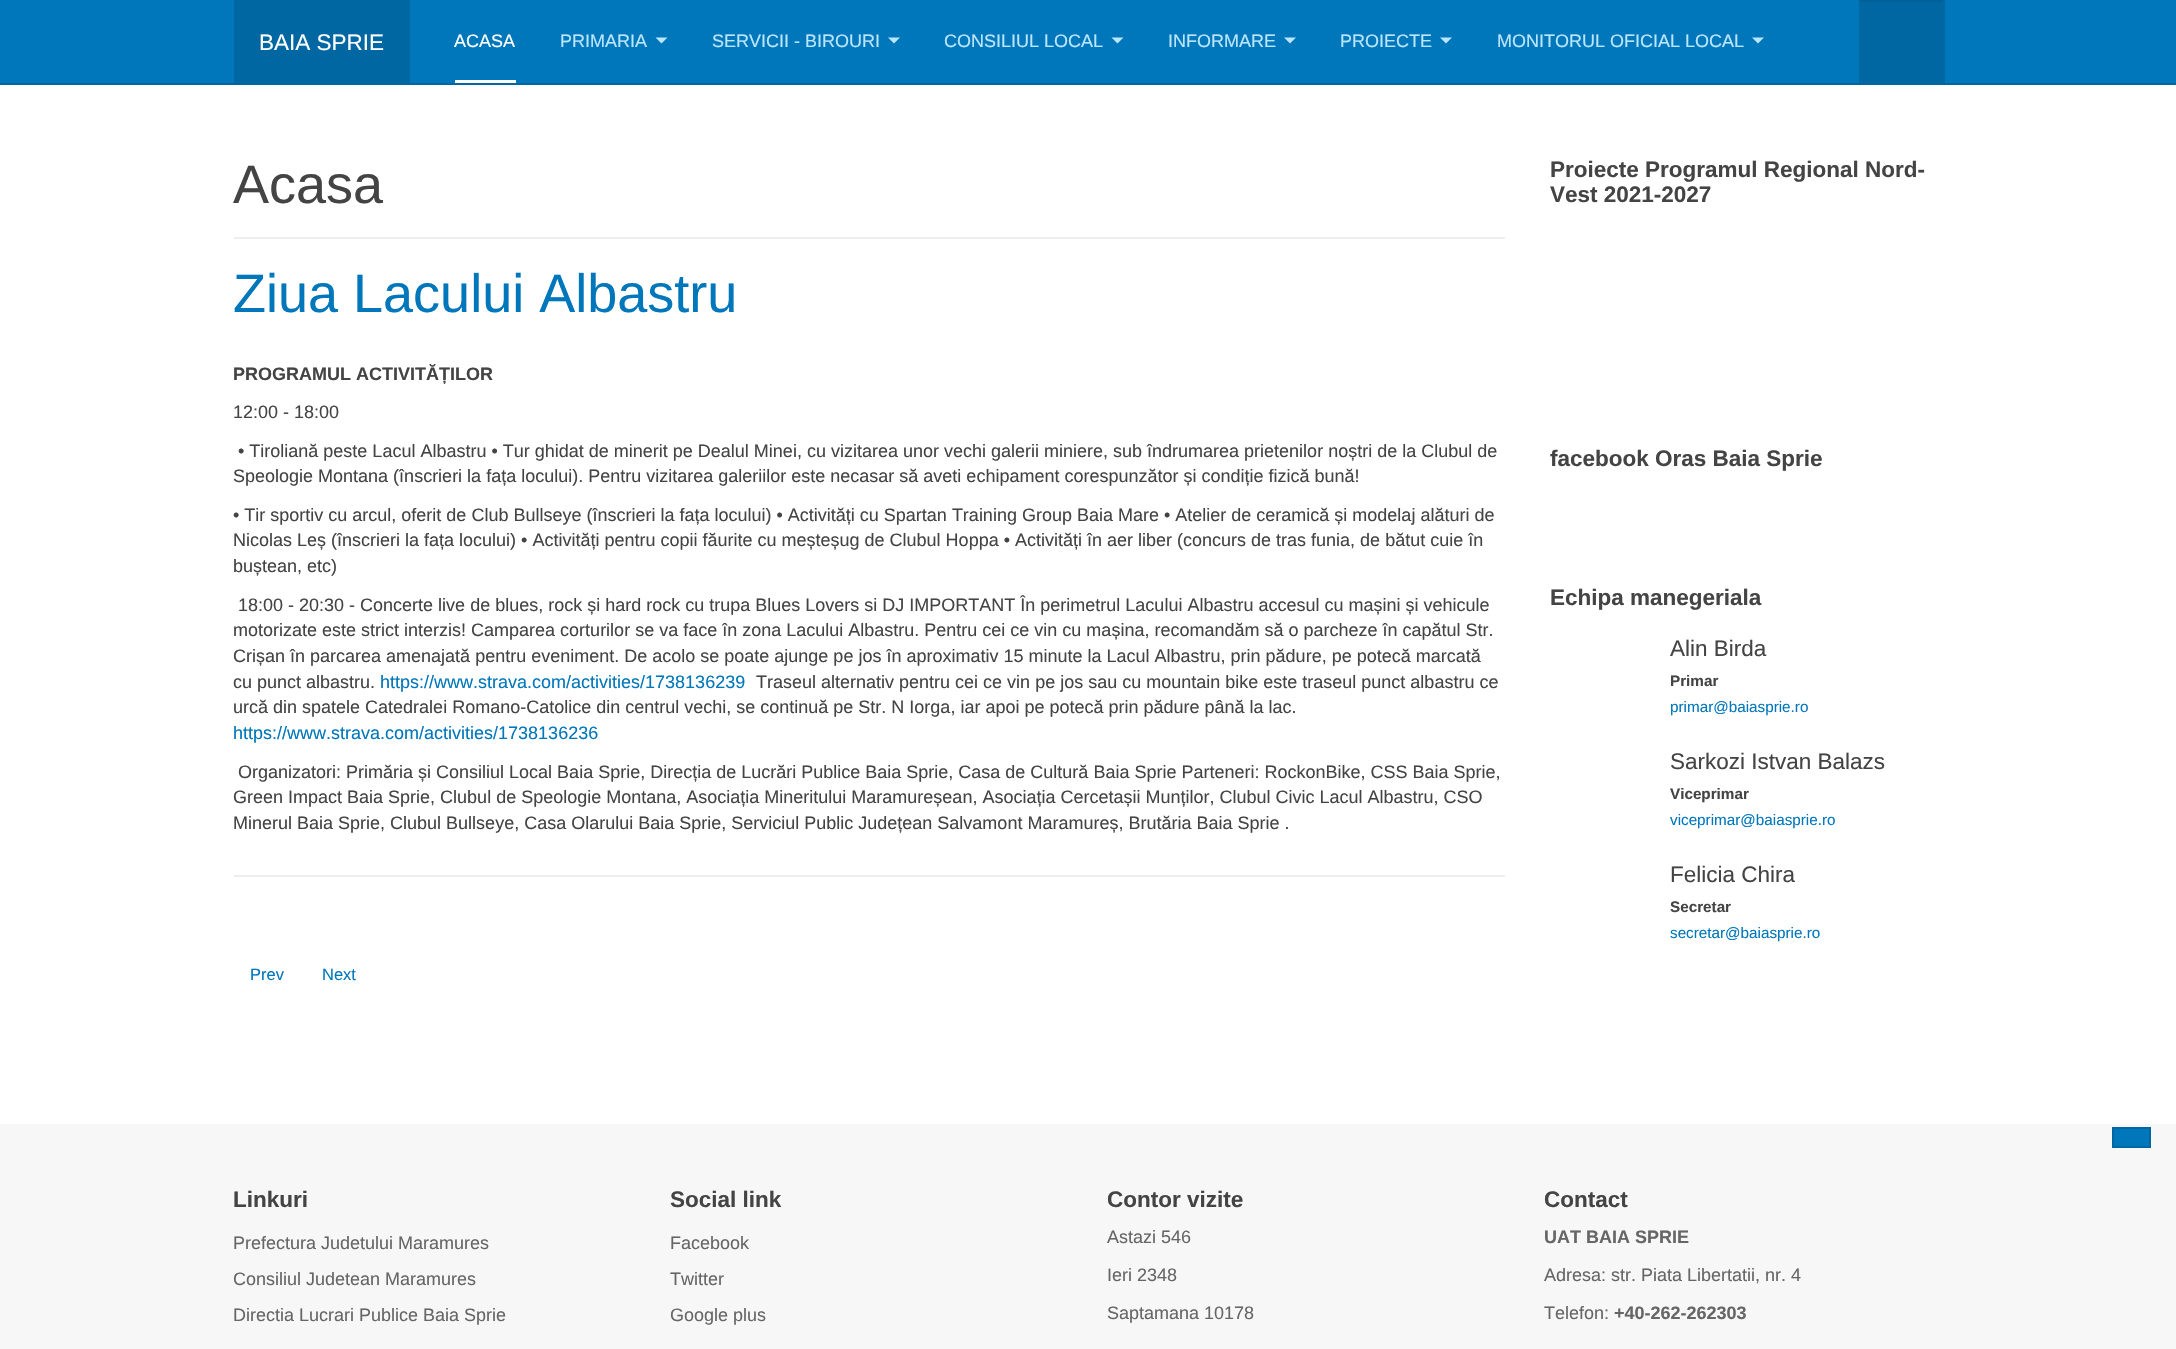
#include "include/core/SkBlurTypes.h"
#include "include/core/SkCanvas.h"
#include "include/core/SkData.h"
#include "include/core/SkFont.h"
#include "include/core/SkFontMgr.h"
#include "include/core/SkImage.h"
#include "include/core/SkMaskFilter.h"
#include "include/core/SkPaint.h"
#include "include/core/SkPathBuilder.h"
#include "include/core/SkTextBlob.h"
#include "include/effects/SkDashPathEffect.h"
#include "include/effects/SkGradientShader.h"
#include "include/utils/SkParsePath.h"

extern sk_sp<SkFontMgr> fontMgr;

static SkFont font(const char* family, int weight, float size, bool italic = false) {
    SkFontStyle style(weight, SkFontStyle::kNormal_Width,
        italic ? SkFontStyle::kItalic_Slant : SkFontStyle::kUpright_Slant);
    SkFont result(fontMgr->matchFamilyStyle(family, style), size);
    result.setSubpixel(true);
    return result;
}

static void drawLabel(SkCanvas* canvas, const char* s, float x, float y, const SkFont& font, SkColor color) {
    SkPaint ink(SkColor4f::FromColor(color));
    ink.setAntiAlias(true);
    canvas->drawString(s, x, y, font, ink);
}

static void fillRect(SkCanvas* canvas, float x, float y, float w, float h, SkColor color) {
    SkPaint ink(SkColor4f::FromColor(color));
    ink.setAntiAlias(true);
    canvas->drawRect(SkRect::MakeXYWH(x, y, w, h), ink);
}

static SkPath parsePath(const char* data, bool evenOdd = false) {
    SkPath result = *SkParsePath::FromSVGString(data);
    if (evenOdd) result.setFillType(SkPathFillType::kEvenOdd);
    return result;
}

void draw(SkCanvas* canvas) {
    SkPaint paint;
    paint.setAntiAlias(true);
    canvas->clear(0xFFFFFFFF);
    fillRect(canvas, 0, 0, 2176, 83, 0xFF0077BB);
    fillRect(canvas, 0, 83, 2176, 2, 0xFF0067A2);
    fillRect(canvas, 234, 0, 176, 83, 0xFF0067A2);
    SkFont font1 = font("Liberation Sans", 400, 22.5f);
    drawLabel(canvas, "BAIA SPRIE", 259, 50, font1, 0xFFFFFFFF);
    fillRect(canvas, 1859, 0, 86, 83, 0xFF0067A2);
    fillRect(canvas, 1860, 0, 83, 2, 0xFF005F96);
    fillRect(canvas, 455, 80, 61, 3, 0xFFFFFFFF);
    SkFont font2 = font("Liberation Sans", 400, 18);
    drawLabel(canvas, "ACASA", 454, 47, font2, 0xFFFFFFFF);
    drawLabel(canvas, "PRIMARIA", 560, 47, font2, 0xFFBBE6FF);
    paint.setColor(0xFFBBE6FF);
    canvas->drawPath(parsePath("M655.5 37.5H667.5L661.5 43.5Z"), paint);
    drawLabel(canvas, "SERVICII - BIROURI", 712, 47, font2, 0xFFBBE6FF);
    canvas->drawPath(parsePath("M888 37.5H900L894 43.5Z"), paint);
    drawLabel(canvas, "CONSILIUL LOCAL", 944, 47, font2, 0xFFBBE6FF);
    canvas->drawPath(parsePath("M1111.5 37.5H1123.5L1117.5 43.5Z"), paint);
    drawLabel(canvas, "INFORMARE", 1168, 47, font2, 0xFFBBE6FF);
    canvas->drawPath(parsePath("M1284 37.5H1296L1290 43.5Z"), paint);
    drawLabel(canvas, "PROIECTE", 1340, 47, font2, 0xFFBBE6FF);
    canvas->drawPath(parsePath("M1440 37.5H1452L1446 43.5Z"), paint);
    drawLabel(canvas, "MONITORUL OFICIAL LOCAL", 1497, 47, font2, 0xFFBBE6FF);
    canvas->drawPath(parsePath("M1752 37.5H1764L1758 43.5Z"), paint);
    fillRect(canvas, 234, 237, 1271, 2, 0xFFEEEEEE);
    SkFont font3 = font("Liberation Sans", 400, 54);
    drawLabel(canvas, "Acasa", 233, 203, font3, 0xFF444444);
    drawLabel(canvas, "Ziua Lacului Albastru", 233, 312, font3, 0xFF0077BB);
    SkFont font4 = font("Liberation Sans", 700, 18);
    drawLabel(canvas, "PROGRAMUL ACTIVITĂȚILOR", 233, 380, font4, 0xFF444444);
    drawLabel(canvas, "12:00 - 18:00", 233, 418, font2, 0xFF444444);
    drawLabel(canvas, "• Tiroliană peste Lacul Albastru • Tur ghidat de minerit pe Dealul Minei, cu vizitarea unor vechi galerii miniere, sub îndrumarea prietenilor noștri de la Clubul de", 238, 457, font2, 0xFF444444);
    drawLabel(canvas, "Speologie Montana (înscrieri la fața locului). Pentru vizitarea galeriilor este necasar să aveti echipament corespunzător și condiție fizică bună!", 233, 482, font2, 0xFF444444);
    drawLabel(canvas, "• Tir sportiv cu arcul, oferit de Club Bullseye (înscrieri la fața locului) • Activități cu Spartan Training Group Baia Mare • Atelier de ceramică și modelaj alături de", 233, 521, font2, 0xFF444444);
    drawLabel(canvas, "Nicolas Leș (înscrieri la fața locului) • Activități pentru copii făurite cu meșteșug de Clubul Hoppa • Activități în aer liber (concurs de tras funia, de bătut cuie în", 233, 546, font2, 0xFF444444);
    drawLabel(canvas, "buștean, etc)", 233, 572, font2, 0xFF444444);
    drawLabel(canvas, "18:00 - 20:30 - Concerte live de blues, rock și hard rock cu trupa Blues Lovers si DJ IMPORTANT În perimetrul Lacului Albastru accesul cu mașini și vehicule", 238, 611, font2, 0xFF444444);
    drawLabel(canvas, "motorizate este strict interzis! Camparea corturilor se va face în zona Lacului Albastru. Pentru cei ce vin cu mașina, recomandăm să o parcheze în capătul Str.", 233, 636, font2, 0xFF444444);
    drawLabel(canvas, "Crișan în parcarea amenajată pentru eveniment. De acolo se poate ajunge pe jos în aproximativ 15 minute la Lacul Albastru, prin pădure, pe potecă marcată", 233, 662, font2, 0xFF444444);
    drawLabel(canvas, "cu punct albastru.", 233, 688, font2, 0xFF444444);
    drawLabel(canvas, "https://www.strava.com/activities/1738136239", 380, 688, font2, 0xFF0077BB);
    drawLabel(canvas, "Traseul alternativ pentru cei ce vin pe jos sau cu mountain bike este traseul punct albastru ce", 756, 688, font2, 0xFF444444);
    drawLabel(canvas, "urcă din spatele Catedralei Romano-Catolice din centrul vechi, se continuă pe Str. N Iorga, iar apoi pe potecă prin pădure până la lac.", 233, 713, font2, 0xFF444444);
    drawLabel(canvas, "https://www.strava.com/activities/1738136236", 233, 739, font2, 0xFF0077BB);
    drawLabel(canvas, "Organizatori: Primăria și Consiliul Local Baia Sprie, Direcția de Lucrări Publice Baia Sprie, Casa de Cultură Baia Sprie Parteneri: RockonBike, CSS Baia Sprie,", 238, 778, font2, 0xFF444444);
    drawLabel(canvas, "Green Impact Baia Sprie, Clubul de Speologie Montana, Asociația Mineritului Maramureșean, Asociația Cercetașii Munților, Clubul Civic Lacul Albastru, CSO", 233, 803, font2, 0xFF444444);
    drawLabel(canvas, "Minerul Baia Sprie, Clubul Bullseye, Casa Olarului Baia Sprie, Serviciul Public Județean Salvamont Maramureș, Brutăria Baia Sprie .", 233, 829, font2, 0xFF444444);
    fillRect(canvas, 234, 875, 1271, 2, 0xFFEEEEEE);
    SkFont font5 = font("Liberation Sans", 400, 16.5f);
    drawLabel(canvas, "Prev", 250, 980, font5, 0xFF0077BB);
    drawLabel(canvas, "Next", 322, 980, font5, 0xFF0077BB);
    SkFont font6 = font("Liberation Sans", 700, 22.5f);
    drawLabel(canvas, "Proiecte Programul Regional Nord-", 1550, 177, font6, 0xFF444444);
    drawLabel(canvas, "Vest 2021-2027", 1550, 202, font6, 0xFF444444);
    drawLabel(canvas, "facebook Oras Baia Sprie", 1550, 466, font6, 0xFF444444);
    drawLabel(canvas, "Echipa manegeriala", 1550, 605, font6, 0xFF444444);
    drawLabel(canvas, "Alin Birda", 1670, 656, font1, 0xFF444444);
    SkFont font7 = font("Liberation Sans", 700, 15.25f);
    drawLabel(canvas, "Primar", 1670, 686, font7, 0xFF444444);
    SkFont font8 = font("Liberation Sans", 400, 15.25f);
    drawLabel(canvas, "primar@baiasprie.ro", 1670, 712, font8, 0xFF0077BB);
    drawLabel(canvas, "Sarkozi Istvan Balazs", 1670, 769, font1, 0xFF444444);
    drawLabel(canvas, "Viceprimar", 1670, 799, font7, 0xFF444444);
    drawLabel(canvas, "viceprimar@baiasprie.ro", 1670, 825, font8, 0xFF0077BB);
    drawLabel(canvas, "Felicia Chira", 1670, 882, font1, 0xFF444444);
    drawLabel(canvas, "Secretar", 1670, 912, font7, 0xFF444444);
    drawLabel(canvas, "secretar@baiasprie.ro", 1670, 938, font8, 0xFF0077BB);
    fillRect(canvas, 0, 1124, 2176, 225, 0xFFF7F7F7);
    paint.setColor(0xFF0077BB);
    canvas->drawRect(SkRect::MakeXYWH(2113, 1128, 37, 19), paint);
    paint.setStroke(true);
    paint.setStrokeWidth(2);
    paint.setColor(0xFF0067A2);
    canvas->drawRect(SkRect::MakeXYWH(2113, 1128, 37, 19), paint);
    drawLabel(canvas, "Linkuri", 233, 1207, font6, 0xFF444444);
    drawLabel(canvas, "Prefectura Judetului Maramures", 233, 1249, font2, 0xFF666666);
    drawLabel(canvas, "Consiliul Judetean Maramures", 233, 1285, font2, 0xFF666666);
    drawLabel(canvas, "Directia Lucrari Publice Baia Sprie", 233, 1321, font2, 0xFF666666);
    drawLabel(canvas, "Social link", 670, 1207, font6, 0xFF444444);
    drawLabel(canvas, "Facebook", 670, 1249, font2, 0xFF666666);
    drawLabel(canvas, "Twitter", 670, 1285, font2, 0xFF666666);
    drawLabel(canvas, "Google plus", 670, 1321, font2, 0xFF666666);
    drawLabel(canvas, "Contor vizite", 1107, 1207, font6, 0xFF444444);
    drawLabel(canvas, "Astazi 546", 1107, 1243, font2, 0xFF666666);
    drawLabel(canvas, "Ieri 2348", 1107, 1281, font2, 0xFF666666);
    drawLabel(canvas, "Saptamana 10178", 1107, 1319, font2, 0xFF666666);
    drawLabel(canvas, "Contact", 1544, 1207, font6, 0xFF444444);
    drawLabel(canvas, "UAT BAIA SPRIE", 1544, 1243, font4, 0xFF666666);
    drawLabel(canvas, "Adresa: str. Piata Libertatii, nr. 4", 1544, 1281, font2, 0xFF666666);
    drawLabel(canvas, "Telefon:", 1544, 1319, font2, 0xFF666666);
    drawLabel(canvas, "+40-262-262303", 1614, 1319, font4, 0xFF666666);
}
